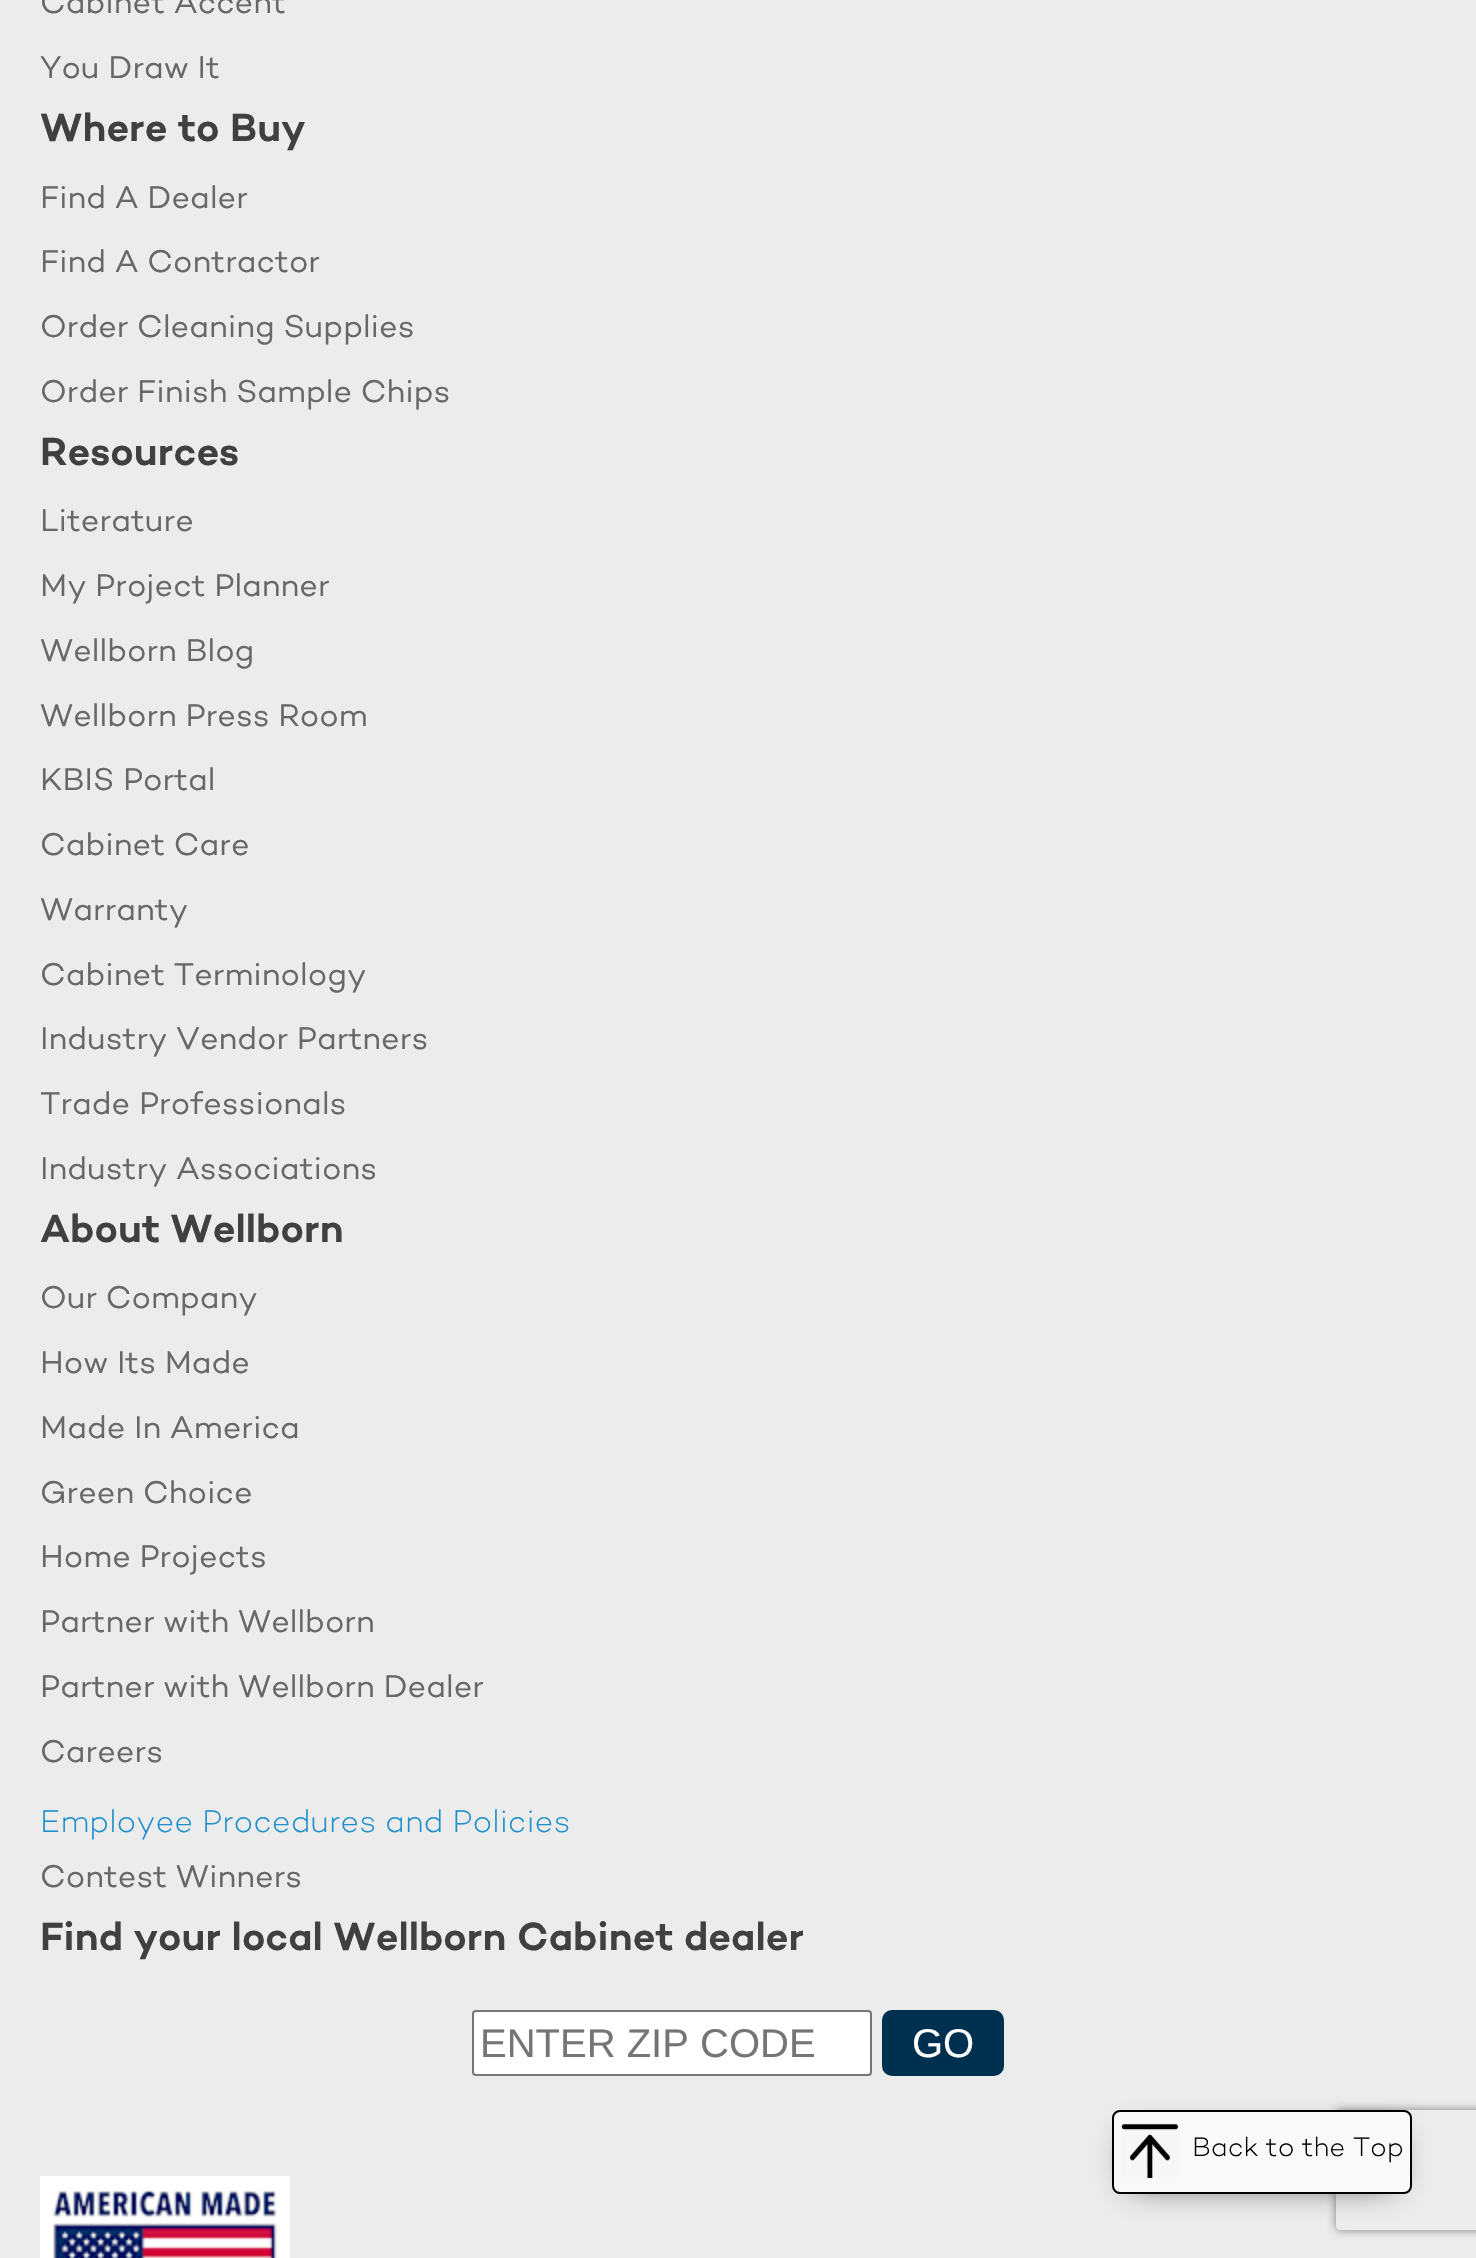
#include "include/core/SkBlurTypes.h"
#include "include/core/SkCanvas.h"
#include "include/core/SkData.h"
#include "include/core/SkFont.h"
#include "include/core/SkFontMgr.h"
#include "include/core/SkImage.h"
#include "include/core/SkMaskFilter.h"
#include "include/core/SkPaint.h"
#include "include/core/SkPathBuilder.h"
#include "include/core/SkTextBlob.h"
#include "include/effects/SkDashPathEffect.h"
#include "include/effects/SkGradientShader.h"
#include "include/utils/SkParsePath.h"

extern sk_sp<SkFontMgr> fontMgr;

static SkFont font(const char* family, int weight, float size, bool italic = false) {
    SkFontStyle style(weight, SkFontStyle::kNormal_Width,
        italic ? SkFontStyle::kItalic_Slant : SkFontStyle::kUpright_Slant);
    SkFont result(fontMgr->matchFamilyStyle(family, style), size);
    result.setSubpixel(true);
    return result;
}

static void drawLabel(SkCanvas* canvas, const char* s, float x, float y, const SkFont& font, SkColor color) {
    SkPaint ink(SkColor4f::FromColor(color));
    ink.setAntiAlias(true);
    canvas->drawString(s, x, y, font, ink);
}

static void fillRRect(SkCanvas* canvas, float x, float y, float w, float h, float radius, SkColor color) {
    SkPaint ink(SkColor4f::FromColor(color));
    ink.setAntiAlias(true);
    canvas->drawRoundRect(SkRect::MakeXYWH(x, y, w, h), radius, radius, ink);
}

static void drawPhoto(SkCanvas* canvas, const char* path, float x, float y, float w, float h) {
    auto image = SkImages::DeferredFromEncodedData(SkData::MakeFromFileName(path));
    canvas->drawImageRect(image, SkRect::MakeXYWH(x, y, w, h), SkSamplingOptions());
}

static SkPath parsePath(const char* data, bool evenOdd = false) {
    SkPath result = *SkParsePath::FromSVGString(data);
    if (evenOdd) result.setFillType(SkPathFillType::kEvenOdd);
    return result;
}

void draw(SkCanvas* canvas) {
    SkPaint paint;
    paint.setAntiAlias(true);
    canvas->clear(0xFFECECEC);
    SkFont font1 = font("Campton", 400, 32);
    drawLabel(canvas, "Cabinet Accent", 40, 13, font1, 0xFF686868);
    drawLabel(canvas, "You Draw It", 40, 78, font1, 0xFF686868);
    SkFont font2 = font("Campton", 600, 40);
    drawLabel(canvas, "Where to Buy", 40, 141, font2, 0xFF404040);
    drawLabel(canvas, "Find A Dealer", 40, 208, font1, 0xFF686868);
    drawLabel(canvas, "Find A Contractor", 40, 272, font1, 0xFF686868);
    drawLabel(canvas, "Order Cleaning Supplies", 40, 337, font1, 0xFF686868);
    drawLabel(canvas, "Order Finish Sample Chips", 40, 402, font1, 0xFF686868);
    drawLabel(canvas, "Resources", 40, 465, font2, 0xFF404040);
    drawLabel(canvas, "Literature", 40, 531, font1, 0xFF686868);
    drawLabel(canvas, "My Project Planner", 40, 596, font1, 0xFF686868);
    drawLabel(canvas, "Wellborn Blog", 40, 661, font1, 0xFF686868);
    drawLabel(canvas, "Wellborn Press Room", 40, 726, font1, 0xFF686868);
    drawLabel(canvas, "KBIS Portal", 40, 790, font1, 0xFF686868);
    drawLabel(canvas, "Cabinet Care", 40, 855, font1, 0xFF686868);
    drawLabel(canvas, "Warranty", 40, 920, font1, 0xFF686868);
    drawLabel(canvas, "Cabinet Terminology", 40, 985, font1, 0xFF686868);
    drawLabel(canvas, "Industry Vendor Partners", 40, 1049, font1, 0xFF686868);
    drawLabel(canvas, "Trade Professionals", 40, 1114, font1, 0xFF686868);
    drawLabel(canvas, "Industry Associations", 40, 1179, font1, 0xFF686868);
    drawLabel(canvas, "About Wellborn", 40, 1242, font2, 0xFF404040);
    drawLabel(canvas, "Our Company", 40, 1308, font1, 0xFF686868);
    drawLabel(canvas, "How Its Made", 40, 1373, font1, 0xFF686868);
    drawLabel(canvas, "Made In America", 40, 1438, font1, 0xFF686868);
    drawLabel(canvas, "Green Choice", 40, 1503, font1, 0xFF686868);
    drawLabel(canvas, "Home Projects", 40, 1567, font1, 0xFF686868);
    drawLabel(canvas, "Partner with Wellborn", 40, 1632, font1, 0xFF686868);
    drawLabel(canvas, "Partner with Wellborn Dealer", 40, 1697, font1, 0xFF686868);
    drawLabel(canvas, "Careers", 40, 1762, font1, 0xFF686868);
    SkFont font3 = font("Campton", 300, 32);
    drawLabel(canvas, "Employee Procedures and Policies", 40, 1832, font3, 0xFF2090CD);
    drawLabel(canvas, "Contest Winners", 40, 1887, font1, 0xFF686868);
    drawLabel(canvas, "Find your local Wellborn Cabinet dealer", 40, 1950, font2, 0xFF404040);
    paint.setColor(0xFFFFFFFF);
    canvas->drawRoundRect(SkRect::MakeXYWH(473, 2011, 398, 64), 3, 3, paint);
    paint.setStroke(true);
    paint.setStrokeWidth(2);
    paint.setColor(0xFF767676);
    canvas->drawRoundRect(SkRect::MakeXYWH(473, 2011, 398, 64), 3, 3, paint);
    SkFont font4 = font("Liberation Sans", 400, 40);
    drawLabel(canvas, "ENTER ZIP CODE", 480, 2057, font4, 0xFF757575);
    fillRRect(canvas, 882, 2010, 122, 66, 10, 0xFF003050);
    drawLabel(canvas, "GO", 912, 2057, font4, 0xFFFFFFFF);
    drawPhoto(canvas, "assets/img1.png", 40, 2176, 250, 82);
    canvas->save();
    canvas->clipPath(parsePath("M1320 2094H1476V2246H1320ZM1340 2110H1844C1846 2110 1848 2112 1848 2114V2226C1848 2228 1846 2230 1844 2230H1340C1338 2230 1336 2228 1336 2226V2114C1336 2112 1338 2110 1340 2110Z", true), true);
    paint.setStroke(false);
    paint.setColor(0xFF808080);
    paint.setMaskFilter(SkMaskFilter::MakeBlur(kNormal_SkBlurStyle, 5));
    canvas->drawRoundRect(SkRect::MakeXYWH(1336, 2110, 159, 120), 4, 4, paint);
    paint.setMaskFilter(nullptr);
    canvas->restore();
    paint.setColor(0xFF1E1E1E);
    paint.setMaskFilter(SkMaskFilter::MakeBlur(kNormal_SkBlurStyle, 17));
    canvas->drawRect(SkRect::MakeXYWH(1132, 2138, 260, 44), paint);
    paint.setMaskFilter(nullptr);
    paint.setColor(0xFFF9F9FA);
    canvas->drawRoundRect(SkRect::MakeXYWH(1113, 2111, 298, 82), 7, 7, paint);
    paint.setStroke(true);
    paint.setColor(0xFF000000);
    canvas->drawRoundRect(SkRect::MakeXYWH(1113, 2111, 298, 82), 7, 7, paint);
    drawPhoto(canvas, "assets/img2.png", 1121, 2123, 58, 55);
    SkFont font5 = font("Campton", 300, 27.25f);
    drawLabel(canvas, "Back to the Top", 1192, 2156, font5, 0xFF000000);
}
